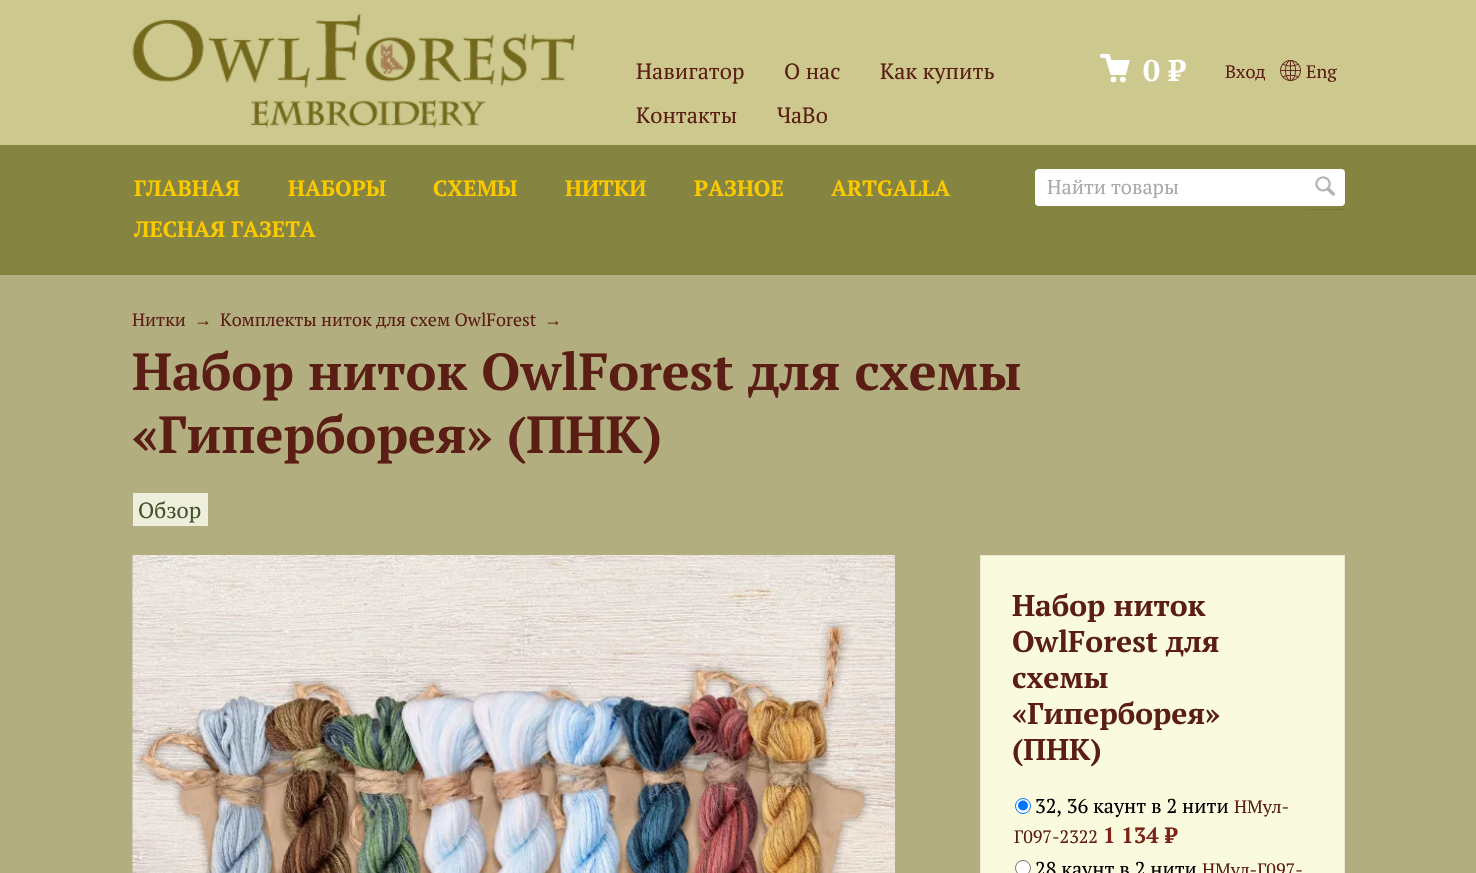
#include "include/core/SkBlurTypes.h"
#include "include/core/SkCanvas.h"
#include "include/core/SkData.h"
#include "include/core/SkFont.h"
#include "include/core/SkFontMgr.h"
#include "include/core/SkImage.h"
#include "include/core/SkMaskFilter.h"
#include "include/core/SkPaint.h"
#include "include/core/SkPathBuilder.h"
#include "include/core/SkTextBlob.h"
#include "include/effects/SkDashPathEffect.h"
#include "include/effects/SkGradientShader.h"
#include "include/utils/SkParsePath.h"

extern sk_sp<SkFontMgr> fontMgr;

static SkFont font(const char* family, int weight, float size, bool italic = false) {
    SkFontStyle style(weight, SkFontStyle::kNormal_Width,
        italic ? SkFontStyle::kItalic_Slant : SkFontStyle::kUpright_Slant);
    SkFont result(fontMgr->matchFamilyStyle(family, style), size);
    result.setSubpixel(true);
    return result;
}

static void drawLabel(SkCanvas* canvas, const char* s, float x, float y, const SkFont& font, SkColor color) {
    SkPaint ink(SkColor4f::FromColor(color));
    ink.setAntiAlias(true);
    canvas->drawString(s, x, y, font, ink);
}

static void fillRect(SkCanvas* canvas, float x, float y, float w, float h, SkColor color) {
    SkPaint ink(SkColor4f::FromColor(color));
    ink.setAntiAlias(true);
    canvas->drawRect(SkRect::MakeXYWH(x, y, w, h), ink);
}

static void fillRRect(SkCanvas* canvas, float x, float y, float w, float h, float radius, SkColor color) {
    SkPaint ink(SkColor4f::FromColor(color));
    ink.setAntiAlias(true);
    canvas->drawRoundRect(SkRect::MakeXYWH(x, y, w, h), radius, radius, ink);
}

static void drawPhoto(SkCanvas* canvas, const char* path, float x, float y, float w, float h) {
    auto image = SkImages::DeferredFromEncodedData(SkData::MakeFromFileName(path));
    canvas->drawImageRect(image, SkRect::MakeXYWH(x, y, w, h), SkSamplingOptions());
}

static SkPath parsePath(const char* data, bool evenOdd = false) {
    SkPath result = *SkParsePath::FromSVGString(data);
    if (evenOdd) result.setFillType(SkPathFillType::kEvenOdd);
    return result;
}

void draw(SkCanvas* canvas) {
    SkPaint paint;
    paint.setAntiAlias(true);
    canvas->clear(0xFFB2AE80);
    fillRect(canvas, 0, 145, 1476, 130, 0xFF868441);
    fillRect(canvas, 0, 0, 1476, 145, 0xFFCDC98E);
    drawPhoto(canvas, "assets/img1.png", 132, 13, 443, 115);
    SkFont font1 = font("PT Serif", 400, 22);
    drawLabel(canvas, "Навигатор", 636, 79, font1, 0xFF5B1E14);
    drawLabel(canvas, "О нас", 784, 79, font1, 0xFF5B1E14);
    drawLabel(canvas, "Как купить", 880, 79, font1, 0xFF5B1E14);
    drawLabel(canvas, "Контакты", 636, 123, font1, 0xFF5B1E14);
    drawLabel(canvas, "ЧаВо", 777, 123, font1, 0xFF5B1E14);
    drawPhoto(canvas, "assets/img2.png", 1100, 53, 30, 30);
    SkFont font2 = font("PT Serif", 700, 30);
    drawLabel(canvas, "0 ₽", 1143, 81, font2, 0xFFFFFFFF);
    SkFont font3 = font("PT Serif", 400, 18);
    drawLabel(canvas, "Вход", 1225, 78, font3, 0xFF5B1E14);
    drawPhoto(canvas, "assets/img3.png", 1280, 60, 21, 21);
    drawLabel(canvas, "Eng", 1306, 78, font3, 0xFF5B1E14);
    SkFont font4 = font("PT Serif", 700, 22);
    drawLabel(canvas, "ГЛАВНАЯ", 134, 196, font4, 0xFFFAC900);
    drawLabel(canvas, "НАБОРЫ", 288, 196, font4, 0xFFFAC900);
    drawLabel(canvas, "СХЕМЫ", 433, 196, font4, 0xFFFAC900);
    drawLabel(canvas, "НИТКИ", 565, 196, font4, 0xFFFAC900);
    drawLabel(canvas, "РАЗНОЕ", 694, 196, font4, 0xFFFAC900);
    drawLabel(canvas, "ARTGALLA", 831, 196, font4, 0xFFFAC900);
    drawLabel(canvas, "ЛЕСНАЯ ГАЗЕТА", 134, 237, font4, 0xFFFAC900);
    fillRRect(canvas, 1035, 169, 310, 37, 4, 0xFFFFFFFF);
    SkFont font5 = font("PT Serif", 400, 20);
    drawLabel(canvas, "Найти товары", 1047, 194, font5, 0xFFAAAAAA);
    canvas->save();
    canvas->clipPath(parsePath("M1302 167H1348V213H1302ZM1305 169H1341C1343 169 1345 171 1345 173V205C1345 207 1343 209 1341 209H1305Z", true), true);
    paint.setColor(0x1A000000);
    paint.setMaskFilter(SkMaskFilter::MakeBlur(kNormal_SkBlurStyle, 0.5f));
    canvas->drawRoundRect(SkRect::MakeXYWH(1305, 170, 40, 40), 4, 4, paint);
    paint.setMaskFilter(nullptr);
    canvas->restore();
    drawPhoto(canvas, "assets/img4.png", 1315, 176, 20, 20);
    drawLabel(canvas, "Нитки", 132, 326, font3, 0xFF5B1E14);
    SkFont font6 = font("Liberation Sans", 400, 18);
    drawLabel(canvas, "→", 194, 326, font6, 0xFF5B1E14);
    drawLabel(canvas, "Комплекты ниток для схем OwlForest", 220, 326, font3, 0xFF5B1E14);
    drawLabel(canvas, "→", 544, 326, font6, 0xFF5B1E14);
    SkFont font7 = font("PT Serif", 700, 52);
    drawLabel(canvas, "Набор ниток OwlForest для схемы", 132, 390, font7, 0xFF5B1E14);
    drawLabel(canvas, "«Гиперборея» (ПНК)", 132, 453, font7, 0xFF5B1E14);
    fillRect(canvas, 133, 493, 75, 33, 0xFFEEEEDD);
    drawLabel(canvas, "Обзор", 138, 518, font1, 0xFF43542A);
    drawPhoto(canvas, "assets/img5.png", 132, 555, 763, 318);
    paint.setColor(0xFFFAFADF);
    canvas->drawRect(SkRect::MakeXYWH(980.5f, 555.5f, 364, 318), paint);
    paint.setStroke(true);
    paint.setStrokeWidth(1);
    paint.setColor(0xFFE9E9CF);
    canvas->drawRect(SkRect::MakeXYWH(980.5f, 555.5f, 364, 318), paint);
    drawLabel(canvas, "Набор ниток", 1012, 616, font2, 0xFF5B1E14);
    drawLabel(canvas, "OwlForest для", 1012, 652, font2, 0xFF5B1E14);
    drawLabel(canvas, "схемы", 1012, 688, font2, 0xFF5B1E14);
    drawLabel(canvas, "«Гиперборея»", 1012, 724, font2, 0xFF5B1E14);
    drawLabel(canvas, "(ПНК)", 1012, 760, font2, 0xFF5B1E14);
    paint.setStroke(false);
    paint.setColor(0xFFFFFFFF);
    canvas->drawCircle(1023, 806, 7.5f, paint);
    paint.setStroke(true);
    paint.setColor(0xFF0075FF);
    canvas->drawCircle(1023, 806, 7.5f, paint);
    paint.setStroke(false);
    canvas->drawCircle(1023, 805.5f, 5, paint);
    drawLabel(canvas, "32, 36 каунт в 2 нити", 1035, 813, font5, 0xFF000000);
    drawLabel(canvas, "НМул-", 1234, 813, font3, 0xFF5B1E14);
    drawLabel(canvas, "Г097-2322", 1014, 843, font3, 0xFF5B1E14);
    drawLabel(canvas, "1 134 ₽", 1103, 843, font4, 0xFF7D2317);
    paint.setColor(0xFFFFFFFF);
    canvas->drawCircle(1023, 868, 7.5f, paint);
    paint.setStroke(true);
    paint.setColor(0xFF767676);
    canvas->drawCircle(1023, 868, 7.5f, paint);
    drawLabel(canvas, "28 каунт в 2 нити", 1035, 876, font5, 0xFF000000);
    drawLabel(canvas, "НМул-Г097-", 1202, 876, font3, 0xFF5B1E14);
}
